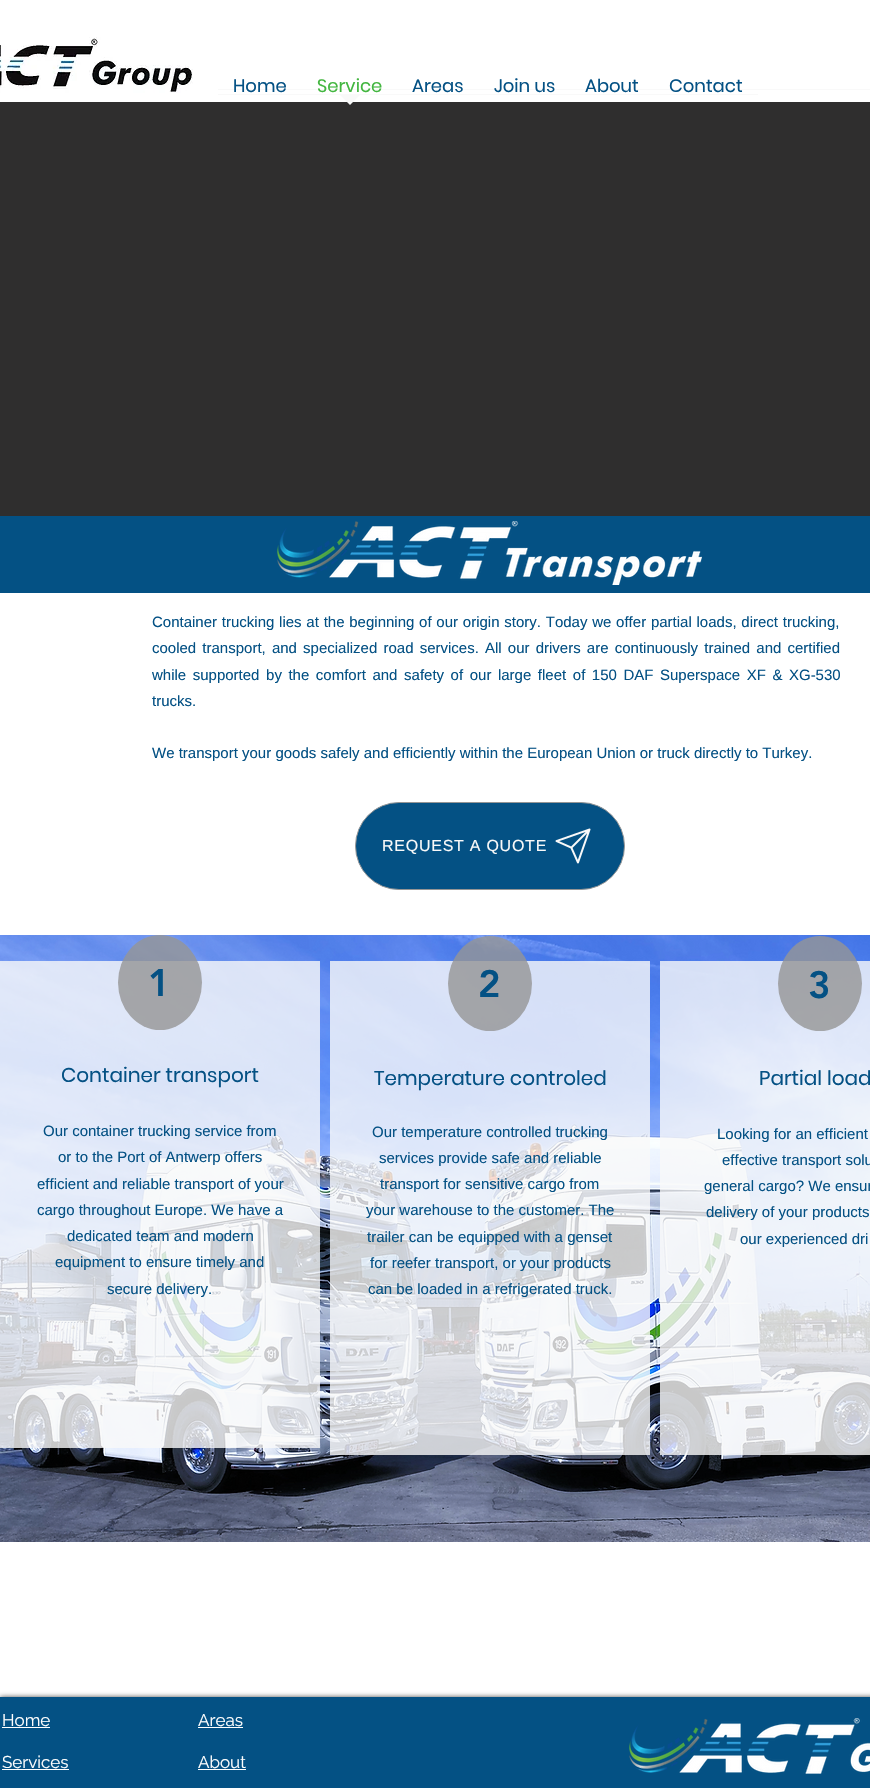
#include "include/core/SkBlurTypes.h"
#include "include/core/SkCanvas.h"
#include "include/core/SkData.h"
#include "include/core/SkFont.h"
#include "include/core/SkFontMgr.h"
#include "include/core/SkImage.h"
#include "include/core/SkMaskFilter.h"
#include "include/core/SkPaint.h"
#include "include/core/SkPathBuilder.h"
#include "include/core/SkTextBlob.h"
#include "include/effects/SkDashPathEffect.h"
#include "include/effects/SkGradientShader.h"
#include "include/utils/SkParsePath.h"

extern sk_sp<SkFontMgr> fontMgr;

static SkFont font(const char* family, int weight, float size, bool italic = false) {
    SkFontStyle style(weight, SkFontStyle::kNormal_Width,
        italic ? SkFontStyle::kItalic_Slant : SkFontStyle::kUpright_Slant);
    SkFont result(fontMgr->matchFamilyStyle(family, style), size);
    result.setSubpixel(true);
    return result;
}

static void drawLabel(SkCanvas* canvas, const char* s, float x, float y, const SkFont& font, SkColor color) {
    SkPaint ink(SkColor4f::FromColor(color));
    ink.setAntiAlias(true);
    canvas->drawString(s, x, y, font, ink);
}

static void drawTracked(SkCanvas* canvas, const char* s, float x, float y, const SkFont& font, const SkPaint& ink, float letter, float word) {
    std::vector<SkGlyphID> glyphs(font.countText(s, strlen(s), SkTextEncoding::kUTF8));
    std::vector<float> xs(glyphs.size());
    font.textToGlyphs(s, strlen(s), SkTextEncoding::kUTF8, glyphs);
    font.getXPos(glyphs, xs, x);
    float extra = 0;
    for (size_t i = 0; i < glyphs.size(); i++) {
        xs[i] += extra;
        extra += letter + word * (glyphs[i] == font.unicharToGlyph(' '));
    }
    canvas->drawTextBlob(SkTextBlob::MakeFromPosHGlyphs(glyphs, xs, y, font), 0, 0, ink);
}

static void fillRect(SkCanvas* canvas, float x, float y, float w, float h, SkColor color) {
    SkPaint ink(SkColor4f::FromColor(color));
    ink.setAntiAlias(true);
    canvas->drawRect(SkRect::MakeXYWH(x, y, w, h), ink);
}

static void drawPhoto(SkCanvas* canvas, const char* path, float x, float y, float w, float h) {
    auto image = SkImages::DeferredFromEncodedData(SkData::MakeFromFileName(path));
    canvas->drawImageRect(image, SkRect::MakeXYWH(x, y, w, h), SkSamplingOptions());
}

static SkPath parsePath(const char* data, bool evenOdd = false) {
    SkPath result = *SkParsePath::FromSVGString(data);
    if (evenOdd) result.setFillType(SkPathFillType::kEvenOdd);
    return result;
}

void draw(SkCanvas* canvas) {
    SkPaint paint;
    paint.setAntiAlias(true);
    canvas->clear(0xFFFFFFFF);
    drawPhoto(canvas, "assets/img1.png", 0, 37, 193, 56);
    fillRect(canvas, 218, 89, 652, 1, 0xFFF9F9F9);
    SkFont font1 = font("Poppins", 400, 18);
    drawLabel(canvas, "Home", 233, 92, font1, 0xFF045184);
    fillRect(canvas, 218, 94, 540, 1, 0xFFF9F9F9);
    drawLabel(canvas, "Service", 317, 92, font1, 0xFF43B640);
    fillRect(canvas, 0, 102, 870, 414, 0xFF2F2E2E);
    paint.setColor(0xFFF9F9F9);
    canvas->drawPath(parsePath("M339 94H361L350 105Z"), paint);
    drawLabel(canvas, "Areas", 412, 92, font1, 0xFF045184);
    drawLabel(canvas, "Join us", 494, 92, font1, 0xFF045184);
    drawLabel(canvas, "About", 585, 92, font1, 0xFF045184);
    drawLabel(canvas, "Contact", 669, 92, font1, 0xFF045184);
    fillRect(canvas, 0, 516, 870, 77, 0xFF045184);
    drawPhoto(canvas, "assets/img2.png", 277, 521, 425, 64);
    SkFont font2 = font("Liberation Sans", 400, 15);
    paint.setColor(0xFF045184);
    drawTracked(canvas, "Container trucking lies at the beginning of our origin story. Today we offer partial loads, direct trucking,", 152, 627, font2, paint, 0, 0.6f);
    drawTracked(canvas, "cooled transport, and specialized road services. All our drivers are continuously trained and certified", 152, 653, font2, paint, 0, 2);
    drawTracked(canvas, "while supported by the comfort and safety of our large fleet of 150 DAF Superspace XF & XG-530", 152, 680, font2, paint, 0, 2.4f);
    drawLabel(canvas, "trucks.", 152, 706, font2, 0xFF045184);
    drawLabel(canvas, "We transport your goods safely and efficiently within the European Union or truck directly to Turkey.", 152, 758, font2, 0xFF045184);
    canvas->drawRoundRect(SkRect::MakeXYWH(355.5f, 802.5f, 269, 87), 43.5f, 43.5f, paint);
    paint.setStroke(true);
    paint.setStrokeWidth(1);
    paint.setColor(0xFF959595);
    canvas->drawRoundRect(SkRect::MakeXYWH(355.5f, 802.5f, 269, 87), 43.5f, 43.5f, paint);
    SkFont font3 = font("Liberation Sans", 400, 16);
    paint.setStroke(false);
    paint.setColor(0xFFF9F9F9);
    drawTracked(canvas, "REQUEST A QUOTE", 382, 851, font3, paint, 0.75f, 0);
    drawPhoto(canvas, "assets/img3.png", 555, 828, 36, 36);
    drawPhoto(canvas, "assets/img4.png", 0, 935, 870, 607);
    fillRect(canvas, 0, 961, 320, 487, 0xCCF9F9F9);
    paint.setColor(0xCC959595);
    canvas->drawOval(SkRect::MakeXYWH(118, 935, 84, 95), paint);
    SkFont font4 = font("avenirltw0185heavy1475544", 900, 38);
    drawLabel(canvas, "1", 148, 996, font4, 0xFF045184);
    SkFont font5 = font("Poppins", 400, 20);
    drawLabel(canvas, "Container transport", 61, 1082, font5, 0xFF045184);
    drawLabel(canvas, "Our container trucking service from", 43, 1136, font2, 0xFF045184);
    drawLabel(canvas, "or to the Port of Antwerp offers", 58, 1162, font2, 0xFF045184);
    drawLabel(canvas, "efficient and reliable transport of your", 37, 1189, font2, 0xFF045184);
    drawLabel(canvas, "cargo throughout Europe. We have a", 37, 1215, font2, 0xFF045184);
    drawLabel(canvas, "dedicated team and modern", 67, 1241, font2, 0xFF045184);
    drawLabel(canvas, "equipment to ensure timely and", 55, 1267, font2, 0xFF045184);
    drawLabel(canvas, "secure delivery.", 107, 1294, font2, 0xFF045184);
    fillRect(canvas, 330, 961, 320, 494, 0xCCF9F9F9);
    canvas->drawOval(SkRect::MakeXYWH(448, 936, 84, 95), paint);
    drawLabel(canvas, "2", 478, 997, font4, 0xFF045184);
    drawLabel(canvas, "Temperature controled", 374, 1085, font5, 0xFF045184);
    drawLabel(canvas, "Our temperature controlled trucking", 372, 1137, font2, 0xFF045184);
    drawLabel(canvas, "services provide safe and reliable", 379, 1163, font2, 0xFF045184);
    drawLabel(canvas, "transport for sensitive cargo from", 380, 1189, font2, 0xFF045184);
    drawLabel(canvas, "your warehouse to the customer. The", 366, 1215, font2, 0xFF045184);
    drawLabel(canvas, "trailer can be equipped with a genset", 367, 1242, font2, 0xFF045184);
    drawLabel(canvas, "for reefer transport, or your products", 370, 1268, font2, 0xFF045184);
    drawLabel(canvas, "can be loaded in a refrigerated truck.", 368, 1294, font2, 0xFF045184);
    fillRect(canvas, 660, 961, 210, 494, 0xCCF9F9F9);
    canvas->drawOval(SkRect::MakeXYWH(778, 936, 84, 95), paint);
    drawLabel(canvas, "3", 808, 998, font4, 0xFF045184);
    drawLabel(canvas, "Partial load", 759, 1085, font5, 0xFF045184);
    drawLabel(canvas, "Looking for an efficient", 717, 1139, font2, 0xFF045184);
    drawLabel(canvas, "effective transport solu", 722, 1165, font2, 0xFF045184);
    drawLabel(canvas, "general cargo? We ensur", 704, 1191, font2, 0xFF045184);
    drawLabel(canvas, "delivery of your products", 706, 1217, font2, 0xFF045184);
    drawLabel(canvas, "our experienced dri", 740, 1244, font2, 0xFF045184);
    paint.setColor(0xB3000000);
    paint.setMaskFilter(SkMaskFilter::MakeBlur(kNormal_SkBlurStyle, 2.5f));
    canvas->drawRect(SkRect::MakeXYWH(0, 1697, 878, 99), paint);
    paint.setMaskFilter(nullptr);
    fillRect(canvas, 0, 1697, 870, 91, 0xFF045184);
    SkFont font6 = font("Raleway", 400, 17);
    drawLabel(canvas, "Home", 2, 1726, font6, 0xFFFFFFFF);
    fillRect(canvas, 2, 1727, 48, 1, 0xFFFFFFFF);
    drawLabel(canvas, "Areas", 198, 1726, font6, 0xFFFFFFFF);
    fillRect(canvas, 198, 1727, 45, 1, 0xFFFFFFFF);
    drawLabel(canvas, "Services", 2, 1768, font6, 0xFFFFFFFF);
    fillRect(canvas, 2, 1769, 67, 1, 0xFFFFFFFF);
    drawLabel(canvas, "About", 198, 1768, font6, 0xFFFFFFFF);
    fillRect(canvas, 198, 1769, 48, 1, 0xFFFFFFFF);
    drawPhoto(canvas, "assets/img5.png", 629, 1718, 241, 56);
}
